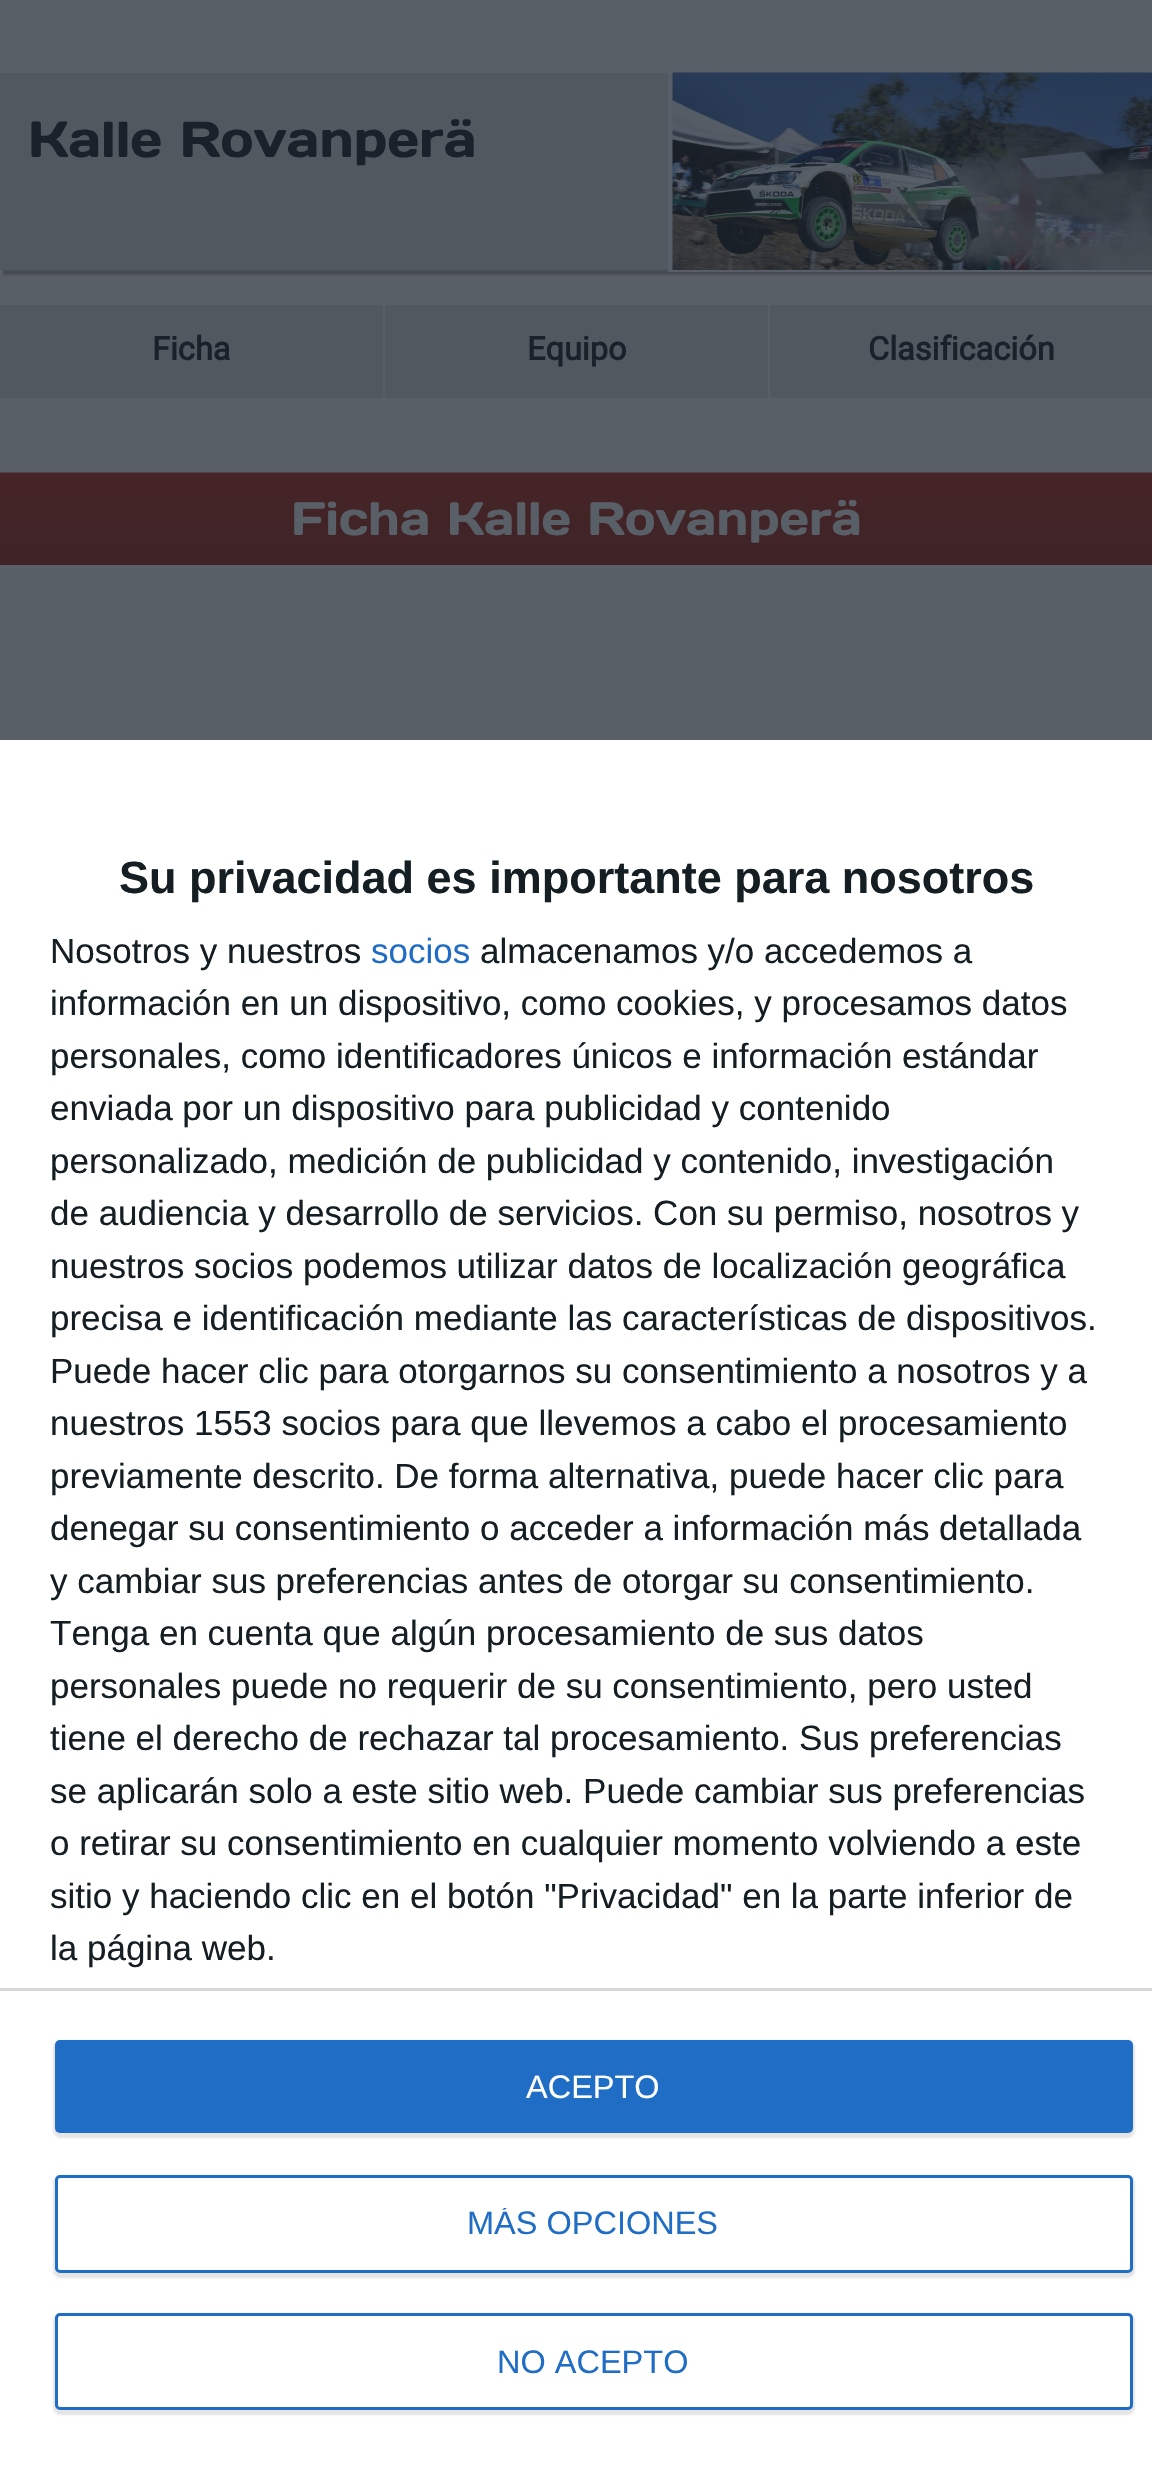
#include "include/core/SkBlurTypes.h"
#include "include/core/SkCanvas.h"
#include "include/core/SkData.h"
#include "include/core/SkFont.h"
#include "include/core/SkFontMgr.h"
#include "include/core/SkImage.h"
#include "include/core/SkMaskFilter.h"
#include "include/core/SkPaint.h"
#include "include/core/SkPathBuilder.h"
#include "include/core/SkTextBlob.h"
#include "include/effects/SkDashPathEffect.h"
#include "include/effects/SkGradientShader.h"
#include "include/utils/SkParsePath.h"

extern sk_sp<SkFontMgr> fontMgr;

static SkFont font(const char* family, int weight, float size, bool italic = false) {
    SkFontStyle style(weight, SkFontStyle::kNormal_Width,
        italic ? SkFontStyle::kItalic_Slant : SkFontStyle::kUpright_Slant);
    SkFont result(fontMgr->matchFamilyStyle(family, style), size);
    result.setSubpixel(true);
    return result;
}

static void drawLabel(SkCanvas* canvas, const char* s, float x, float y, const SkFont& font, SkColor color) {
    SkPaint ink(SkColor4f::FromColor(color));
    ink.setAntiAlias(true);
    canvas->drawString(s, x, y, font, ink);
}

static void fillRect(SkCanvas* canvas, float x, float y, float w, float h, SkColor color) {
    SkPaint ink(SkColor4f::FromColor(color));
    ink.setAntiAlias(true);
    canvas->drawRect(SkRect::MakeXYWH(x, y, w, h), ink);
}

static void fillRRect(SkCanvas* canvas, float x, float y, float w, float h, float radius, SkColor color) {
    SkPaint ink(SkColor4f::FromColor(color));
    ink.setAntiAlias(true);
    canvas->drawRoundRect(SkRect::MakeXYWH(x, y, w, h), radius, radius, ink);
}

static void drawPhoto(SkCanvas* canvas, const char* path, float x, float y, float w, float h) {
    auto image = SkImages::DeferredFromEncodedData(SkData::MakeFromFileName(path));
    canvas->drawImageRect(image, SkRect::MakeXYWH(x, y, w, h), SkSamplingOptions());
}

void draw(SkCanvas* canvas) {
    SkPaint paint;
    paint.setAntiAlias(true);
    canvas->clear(0xFF595F67);
    paint.setColor(0xFF474C54);
    paint.setMaskFilter(SkMaskFilter::MakeBlur(kNormal_SkBlurStyle, 1));
    canvas->drawRect(SkRect::MakeXYWH(3, 78, 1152, 197), paint);
    paint.setMaskFilter(nullptr);
    fillRect(canvas, 0, 73, 668, 197, 0xFF525860);
    SkFont font1 = font("Days One", 400, 50.5f);
    drawLabel(canvas, "Kalle Rovanperä", 28, 157, font1, 0xFF1B212A);
    drawPhoto(canvas, "assets/img1.png", 668, 72, 484, 200);
    fillRect(canvas, 0, 305, 383, 93, 0xFF525860);
    SkFont font2 = font("Roboto", 700, 32.5f);
    drawLabel(canvas, "Ficha", 152, 360, font2, 0xFF1B212A);
    fillRect(canvas, 385, 305, 383, 93, 0xFF525860);
    drawLabel(canvas, "Equipo", 527, 360, font2, 0xFF1B212A);
    fillRect(canvas, 770, 305, 382, 93, 0xFF525860);
    drawLabel(canvas, "Clasificación", 868, 360, font2, 0xFF1B212A);
    drawPhoto(canvas, "assets/img2.png", 0, 472, 1152, 93);
    SkFont font3 = font("Days One", 400, 46.75f);
    drawLabel(canvas, "Ficha Kalle Rovanperä", 291, 535, font3, 0xFF595F67);
    fillRect(canvas, 0, 740, 1152, 1728, 0xFFFFFFFF);
    SkFont font4 = font("Liberation Sans", 700, 45);
    drawLabel(canvas, "Su privacidad es importante para nosotros", 119, 893, font4, 0xFF141E23);
    SkFont font5 = font("Liberation Sans", 400, 35);
    drawLabel(canvas, "Nosotros y nuestros", 50, 963, font5, 0xFF141E23);
    drawLabel(canvas, "socios", 371, 963, font5, 0xFF206DC5);
    drawLabel(canvas, "almacenamos y/o accedemos a", 480, 963, font5, 0xFF141E23);
    drawLabel(canvas, "información en un dispositivo, como cookies, y procesamos datos", 50, 1015, font5, 0xFF141E23);
    drawLabel(canvas, "personales, como identificadores únicos e información estándar", 50, 1068, font5, 0xFF141E23);
    drawLabel(canvas, "enviada por un dispositivo para publicidad y contenido", 50, 1120, font5, 0xFF141E23);
    drawLabel(canvas, "personalizado, medición de publicidad y contenido, investigación", 50, 1173, font5, 0xFF141E23);
    drawLabel(canvas, "de audiencia y desarrollo de servicios. Con su permiso, nosotros y", 50, 1225, font5, 0xFF141E23);
    drawLabel(canvas, "nuestros socios podemos utilizar datos de localización geográfica", 50, 1278, font5, 0xFF141E23);
    drawLabel(canvas, "precisa e identificación mediante las características de dispositivos.", 50, 1330, font5, 0xFF141E23);
    drawLabel(canvas, "Puede hacer clic para otorgarnos su consentimiento a nosotros y a", 50, 1383, font5, 0xFF141E23);
    drawLabel(canvas, "nuestros 1553 socios para que llevemos a cabo el procesamiento", 50, 1435, font5, 0xFF141E23);
    drawLabel(canvas, "previamente descrito. De forma alternativa, puede hacer clic para", 50, 1488, font5, 0xFF141E23);
    drawLabel(canvas, "denegar su consentimiento o acceder a información más detallada", 50, 1540, font5, 0xFF141E23);
    drawLabel(canvas, "y cambiar sus preferencias antes de otorgar su consentimiento.", 50, 1593, font5, 0xFF141E23);
    drawLabel(canvas, "Tenga en cuenta que algún procesamiento de sus datos", 50, 1645, font5, 0xFF141E23);
    drawLabel(canvas, "personales puede no requerir de su consentimiento, pero usted", 50, 1698, font5, 0xFF141E23);
    drawLabel(canvas, "tiene el derecho de rechazar tal procesamiento. Sus preferencias", 50, 1750, font5, 0xFF141E23);
    drawLabel(canvas, "se aplicarán solo a este sitio web. Puede cambiar sus preferencias", 50, 1803, font5, 0xFF141E23);
    drawLabel(canvas, "o retirar su consentimiento en cualquier momento volviendo a este", 50, 1855, font5, 0xFF141E23);
    drawLabel(canvas, "sitio y haciendo clic en el botón \"Privacidad\" en la parte inferior de", 50, 1908, font5, 0xFF141E23);
    drawLabel(canvas, "la página web.", 50, 1960, font5, 0xFF141E23);
    fillRect(canvas, 0, 1988, 1152, 3, 0xFFD8D8D8);
    paint.setColor(0x1A000000);
    paint.setMaskFilter(SkMaskFilter::MakeBlur(kNormal_SkBlurStyle, 1));
    canvas->drawRoundRect(SkRect::MakeXYWH(53, 2040, 1082, 98), 8, 8, paint);
    paint.setMaskFilter(nullptr);
    fillRRect(canvas, 55, 2040, 1078, 93, 5, 0xFF206DC5);
    SkFont font6 = font("Liberation Sans", 400, 32.5f);
    drawLabel(canvas, "ACEPTO", 526, 2098, font6, 0xFFFFFFFF);
    paint.setMaskFilter(SkMaskFilter::MakeBlur(kNormal_SkBlurStyle, 1));
    canvas->drawRoundRect(SkRect::MakeXYWH(53, 2175, 1082, 103), 8, 8, paint);
    paint.setMaskFilter(nullptr);
    paint.setColor(0xFFFFFFFF);
    canvas->drawRoundRect(SkRect::MakeXYWH(56.5f, 2176.5f, 1075, 95), 3.5f, 3.5f, paint);
    paint.setStroke(true);
    paint.setStrokeWidth(3);
    paint.setColor(0xFF206DC5);
    canvas->drawRoundRect(SkRect::MakeXYWH(56.5f, 2176.5f, 1075, 95), 3.5f, 3.5f, paint);
    canvas->save();
    canvas->clipRect(SkRect::MakeXYWH(468, 2208, 250, 32));
    drawLabel(canvas, "MÁS OPCIONES", 467, 2234, font6, 0xFF206DC5);
    canvas->restore();
    paint.setStroke(false);
    paint.setColor(0x1A000000);
    paint.setMaskFilter(SkMaskFilter::MakeBlur(kNormal_SkBlurStyle, 1));
    canvas->drawRoundRect(SkRect::MakeXYWH(53, 2313, 1082, 102), 8, 8, paint);
    paint.setMaskFilter(nullptr);
    paint.setColor(0xFFFFFFFF);
    canvas->drawRoundRect(SkRect::MakeXYWH(56.5f, 2314.5f, 1075, 94), 3.5f, 3.5f, paint);
    paint.setStroke(true);
    paint.setColor(0xFF206DC5);
    canvas->drawRoundRect(SkRect::MakeXYWH(56.5f, 2314.5f, 1075, 94), 3.5f, 3.5f, paint);
    drawLabel(canvas, "NO ACEPTO", 497, 2373, font6, 0xFF206DC5);
}
